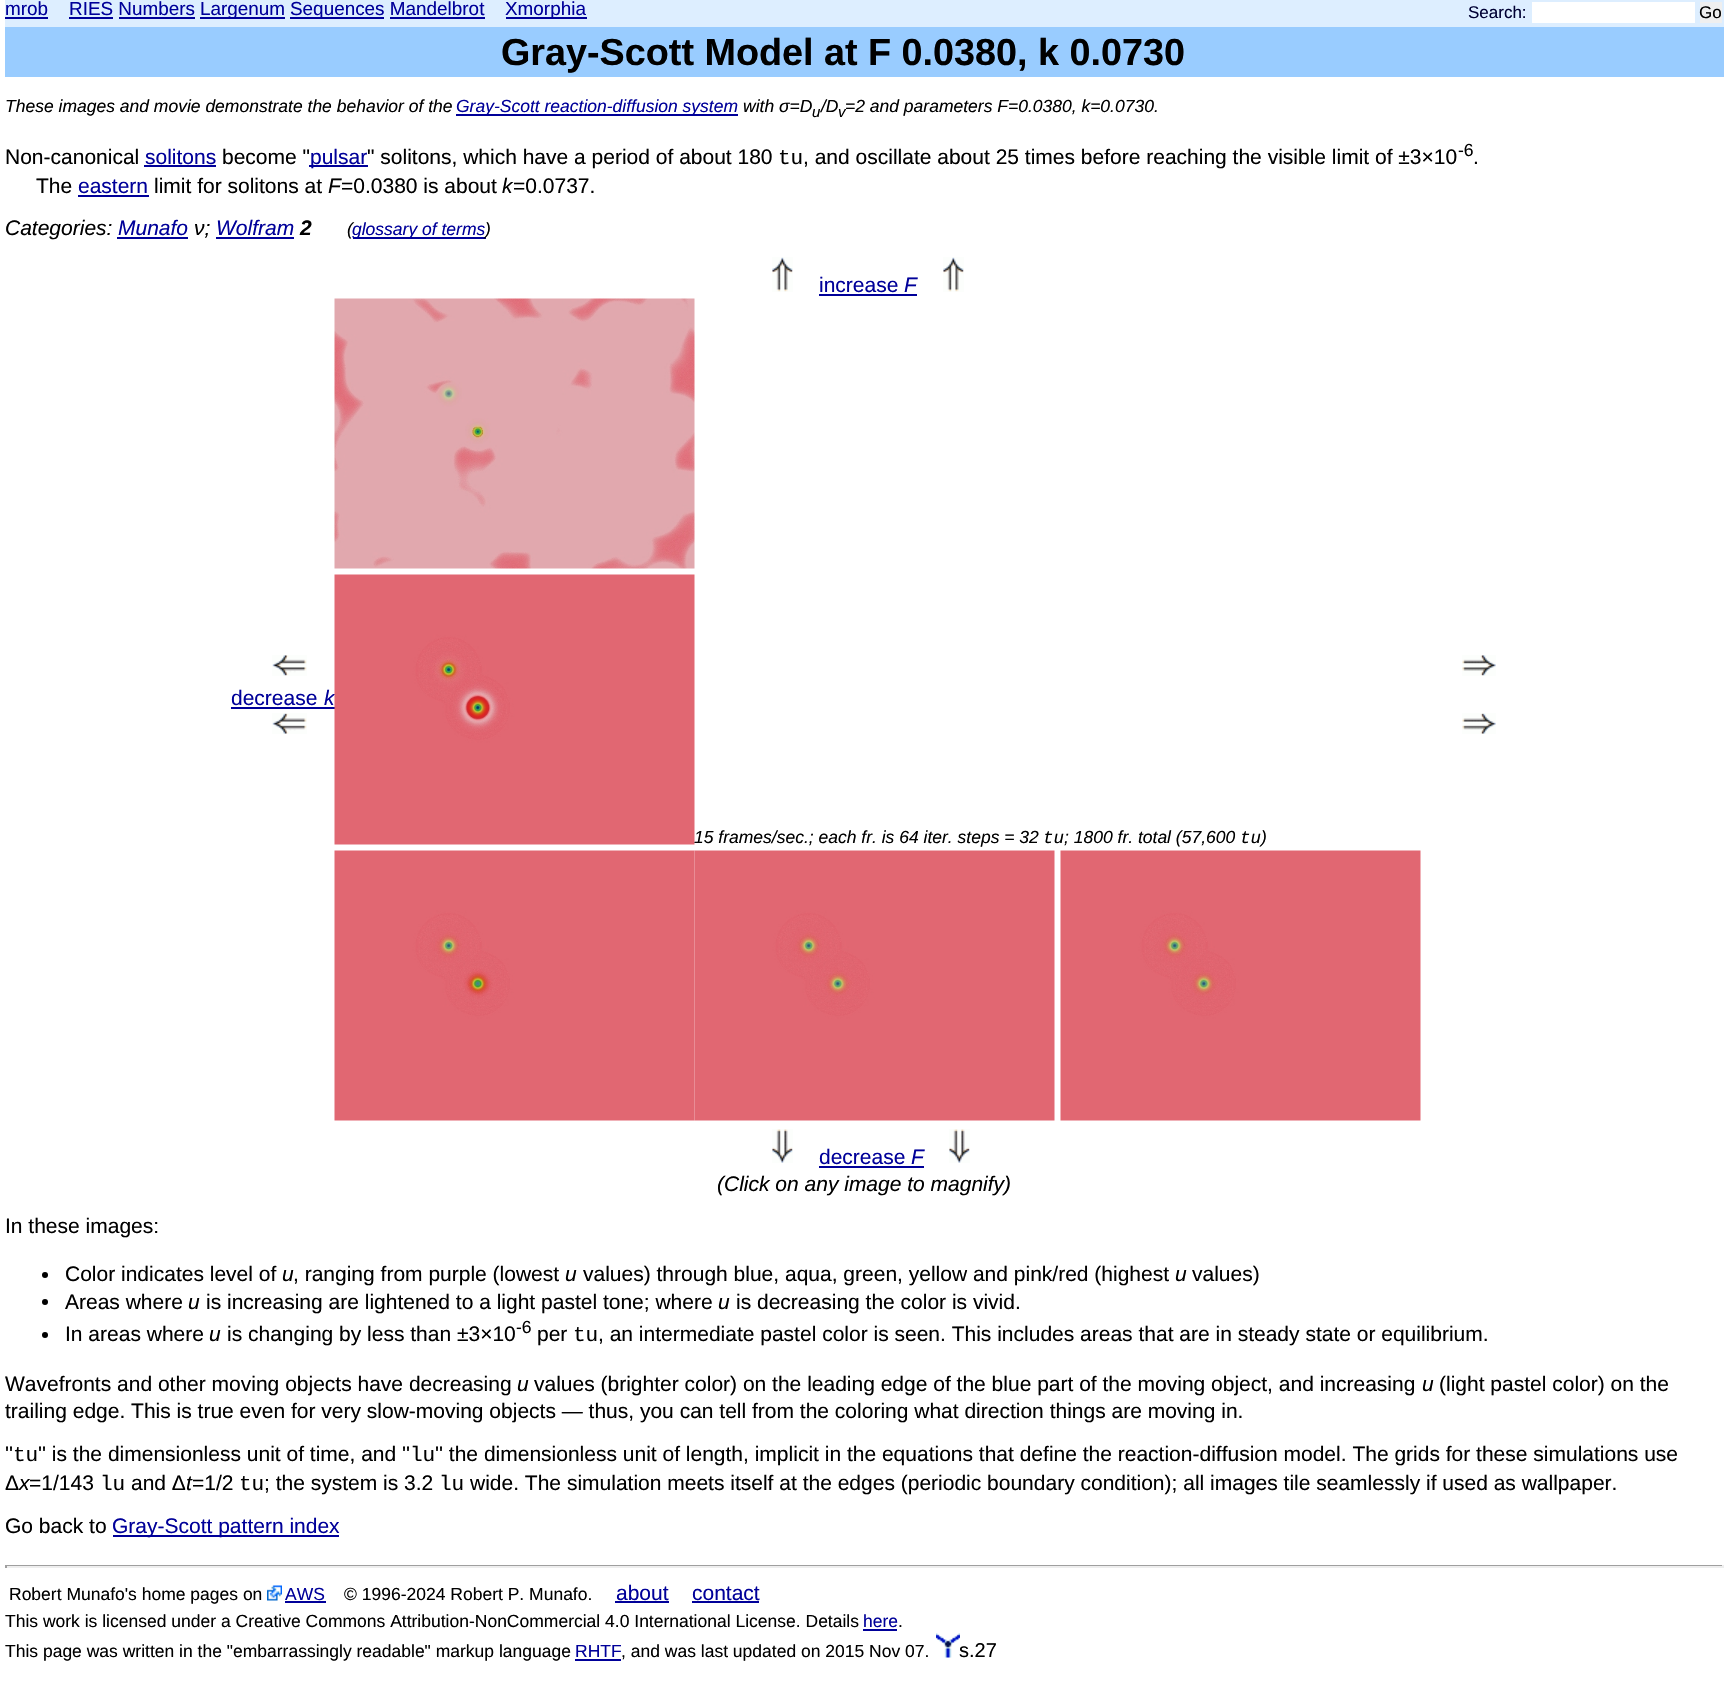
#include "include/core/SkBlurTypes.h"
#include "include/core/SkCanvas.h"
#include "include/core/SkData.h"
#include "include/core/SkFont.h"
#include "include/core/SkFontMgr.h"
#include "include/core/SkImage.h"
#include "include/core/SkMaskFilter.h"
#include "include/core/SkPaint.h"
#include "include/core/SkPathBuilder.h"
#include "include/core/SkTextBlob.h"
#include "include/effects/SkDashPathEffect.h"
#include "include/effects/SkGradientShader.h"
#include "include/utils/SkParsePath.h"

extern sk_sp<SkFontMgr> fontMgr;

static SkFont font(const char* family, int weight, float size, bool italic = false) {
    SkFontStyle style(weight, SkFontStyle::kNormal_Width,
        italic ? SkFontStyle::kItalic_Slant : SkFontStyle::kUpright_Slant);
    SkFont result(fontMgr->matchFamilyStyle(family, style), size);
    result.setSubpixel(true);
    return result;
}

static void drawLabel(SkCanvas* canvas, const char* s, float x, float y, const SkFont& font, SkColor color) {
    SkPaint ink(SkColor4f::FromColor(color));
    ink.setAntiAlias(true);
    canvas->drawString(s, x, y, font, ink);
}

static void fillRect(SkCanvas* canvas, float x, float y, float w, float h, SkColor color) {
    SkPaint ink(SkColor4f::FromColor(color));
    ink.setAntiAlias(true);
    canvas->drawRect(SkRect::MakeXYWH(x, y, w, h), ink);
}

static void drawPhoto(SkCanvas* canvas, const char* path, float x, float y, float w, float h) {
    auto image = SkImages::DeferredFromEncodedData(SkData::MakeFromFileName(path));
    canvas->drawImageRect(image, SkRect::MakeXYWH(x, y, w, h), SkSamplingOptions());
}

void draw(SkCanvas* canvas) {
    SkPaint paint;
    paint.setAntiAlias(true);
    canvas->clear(0xFFFFFFFF);
    fillRect(canvas, 5, 0, 1719, 27, 0xFFDDEEFF);
    SkFont font1 = font("Liberation Sans", 400, 18.9f);
    drawLabel(canvas, "mrob", 5, 15, font1, 0xFF000099);
    fillRect(canvas, 5, 17, 43, 2, 0xFF000099);
    drawLabel(canvas, "RIES Numbers", 69, 15, font1, 0xFF000099);
    fillRect(canvas, 69, 17, 44, 2, 0xFF000099);
    fillRect(canvas, 200, 17, 85, 2, 0xFF000099);
    drawLabel(canvas, "Largenum", 200, 15, font1, 0xFF000099);
    fillRect(canvas, 290, 17, 94, 2, 0xFF000099);
    drawLabel(canvas, "Sequences Mandelbrot", 290, 15, font1, 0xFF000099);
    fillRect(canvas, 506, 17, 81, 2, 0xFF000099);
    drawLabel(canvas, "Xmorphia", 505, 15, font1, 0xFF000099);
    fillRect(canvas, 119, 17, 76, 2, 0xFF000099);
    fillRect(canvas, 390, 17, 95, 2, 0xFF000099);
    SkFont font2 = font("Liberation Sans", 400, 17);
    drawLabel(canvas, "Search:", 1468, 18, font2, 0xFF000033);
    fillRect(canvas, 1532, 2, 163, 21, 0xFFFFFFFF);
    fillRect(canvas, 1700, 2, 22, 21, 0xFFEFEFEF);
    drawLabel(canvas, "Go", 1699, 18, font2, 0xFF000000);
    fillRect(canvas, 5, 27, 1719, 50, 0xFF99CCFF);
    SkFont font3 = font("Liberation Sans", 700, 37.75f);
    drawLabel(canvas, "Gray-Scott Model at F 0.0380, k 0.0730", 501, 65, font3, 0xFF000000);
    SkFont font4 = font("Liberation Sans", 400, 17.5f, true);
    drawLabel(canvas, "These images and movie demonstrate the behavior of the", 5, 112, font4, 0xFF000000);
    fillRect(canvas, 456, 114, 282, 2, 0xFF000099);
    drawLabel(canvas, "Gray-Scott reaction-diffusion system", 456, 112, font4, 0xFF000099);
    drawLabel(canvas, "with σ=D", 743, 112, font4, 0xFF000000);
    SkFont font5 = font("Liberation Sans", 400, 15, true);
    drawLabel(canvas, "u", 812, 117, font5, 0xFF000000);
    drawLabel(canvas, "/D", 821, 112, font4, 0xFF000000);
    drawLabel(canvas, "v", 838, 117, font5, 0xFF000000);
    drawLabel(canvas, "=2 and parameters F=0.0380, k=0.0730.", 845, 112, font4, 0xFF000000);
    SkFont font6 = font("Liberation Sans", 400, 21);
    drawLabel(canvas, "Non-canonical", 5, 164, font6, 0xFF000000);
    drawLabel(canvas, "solitons", 145, 164, font6, 0xFF000099);
    fillRect(canvas, 144, 165, 72, 2, 0xFF000099);
    drawLabel(canvas, "become \"", 222, 164, font6, 0xFF000000);
    fillRect(canvas, 309, 165, 59, 2, 0xFF000099);
    drawLabel(canvas, "pulsar", 310, 164, font6, 0xFF000099);
    drawLabel(canvas, "\" solitons, which have a period of about 180", 367, 164, font6, 0xFF000000);
    SkFont font7 = font("Liberation Mono", 400, 21);
    drawLabel(canvas, "tu", 778, 164, font7, 0xFF000000);
    drawLabel(canvas, ", and oscillate about 25 times before reaching the visible limit of ±3×10", 803, 164, font6, 0xFF000000);
    SkFont font8 = font("Liberation Sans", 400, 17.5f);
    drawLabel(canvas, "-6", 1458, 156, font8, 0xFF000000);
    drawLabel(canvas, ".", 1473, 164, font6, 0xFF000000);
    drawLabel(canvas, "The", 36, 193, font6, 0xFF000000);
    drawLabel(canvas, "eastern", 78, 193, font6, 0xFF000099);
    fillRect(canvas, 78, 195, 71, 2, 0xFF000099);
    drawLabel(canvas, "limit for solitons at", 154, 193, font6, 0xFF000000);
    SkFont font9 = font("Liberation Sans", 400, 21, true);
    drawLabel(canvas, "F", 328, 193, font9, 0xFF000000);
    drawLabel(canvas, "=0.0380 is about", 341, 193, font6, 0xFF000000);
    drawLabel(canvas, "k", 502, 193, font9, 0xFF000000);
    drawLabel(canvas, "=0.0737.", 513, 193, font6, 0xFF000000);
    drawLabel(canvas, "Categories:", 5, 235, font9, 0xFF000000);
    drawLabel(canvas, "Munafo", 118, 235, font9, 0xFF000099);
    fillRect(canvas, 117, 237, 71, 2, 0xFF000099);
    drawLabel(canvas, "ν;", 194, 235, font9, 0xFF000000);
    fillRect(canvas, 216, 237, 78, 2, 0xFF000099);
    drawLabel(canvas, "Wolfram", 216, 235, font9, 0xFF000099);
    SkFont font10 = font("Liberation Sans", 700, 21, true);
    drawLabel(canvas, "2", 300, 235, font10, 0xFF000000);
    drawLabel(canvas, "(", 347, 235, font4, 0xFF000000);
    fillRect(canvas, 353, 237, 133, 2, 0xFF000099);
    drawLabel(canvas, "glossary of terms", 352, 235, font4, 0xFF000099);
    drawLabel(canvas, ")", 485, 235, font4, 0xFF000000);
    drawPhoto(canvas, "assets/img1.png", 772, 257, 21, 35);
    drawLabel(canvas, "increase", 819, 292, font6, 0xFF000099);
    fillRect(canvas, 819, 294, 98, 2, 0xFF000099);
    drawLabel(canvas, "F", 904, 292, font9, 0xFF000099);
    drawPhoto(canvas, "assets/img1.png", 943, 257, 21, 35);
    drawPhoto(canvas, "assets/img2.png", 272, 655, 35, 21);
    drawLabel(canvas, "decrease", 231, 705, font6, 0xFF000099);
    fillRect(canvas, 231, 707, 104, 2, 0xFF000099);
    drawLabel(canvas, "k", 324, 705, font9, 0xFF000099);
    drawPhoto(canvas, "assets/img3.png", 272, 713, 35, 21);
    drawPhoto(canvas, "assets/img4.png", 334, 298, 361, 271);
    drawPhoto(canvas, "assets/img5.png", 334, 574, 361, 271);
    drawPhoto(canvas, "assets/img6.png", 1462, 655, 34, 21);
    drawPhoto(canvas, "assets/img7.png", 1462, 713, 34, 21);
    drawLabel(canvas, "15 frames/sec.; each fr. is 64 iter. steps = 32", 694, 843, font4, 0xFF000000);
    SkFont font11 = font("Liberation Mono", 400, 17.5f, true);
    drawLabel(canvas, "tu", 1043, 843, font11, 0xFF000000);
    drawLabel(canvas, "; 1800 fr. total (57,600", 1064, 843, font4, 0xFF000000);
    drawLabel(canvas, "tu", 1240, 843, font11, 0xFF000000);
    drawLabel(canvas, ")", 1261, 843, font4, 0xFF000000);
    drawPhoto(canvas, "assets/img8.png", 334, 850, 361, 271);
    drawPhoto(canvas, "assets/img9.png", 694, 850, 361, 271);
    drawPhoto(canvas, "assets/img10.png", 1060, 850, 361, 271);
    drawPhoto(canvas, "assets/img11.png", 772, 1129, 21, 34);
    drawLabel(canvas, "decrease", 819, 1164, font6, 0xFF000099);
    fillRect(canvas, 819, 1166, 105, 2, 0xFF000099);
    drawLabel(canvas, "F", 911, 1164, font9, 0xFF000099);
    drawPhoto(canvas, "assets/img11.png", 949, 1129, 21, 34);
    drawLabel(canvas, "(Click on any image to magnify)", 717, 1191, font9, 0xFF000000);
    drawLabel(canvas, "In these images:", 5, 1233, font6, 0xFF000000);
    paint.setColor(0xFF000000);
    canvas->drawCircle(45, 1275, 3, paint);
    drawLabel(canvas, "Color indicates level of", 65, 1281, font6, 0xFF000000);
    drawLabel(canvas, "u", 282, 1281, font9, 0xFF000000);
    drawLabel(canvas, ", ranging from purple (lowest", 293, 1281, font6, 0xFF000000);
    drawLabel(canvas, "u", 565, 1281, font9, 0xFF000000);
    drawLabel(canvas, "values) through blue, aqua, green, yellow and pink/red (highest", 583, 1281, font6, 0xFF000000);
    drawLabel(canvas, "u", 1175, 1281, font9, 0xFF000000);
    drawLabel(canvas, "values)", 1192, 1281, font6, 0xFF000000);
    canvas->drawCircle(45, 1302, 3, paint);
    drawLabel(canvas, "Areas where", 65, 1309, font6, 0xFF000000);
    drawLabel(canvas, "u", 188, 1309, font9, 0xFF000000);
    drawLabel(canvas, "is increasing are lightened to a light pastel tone; where", 206, 1309, font6, 0xFF000000);
    drawLabel(canvas, "u", 718, 1309, font9, 0xFF000000);
    drawLabel(canvas, "is decreasing the color is vivid.", 736, 1309, font6, 0xFF000000);
    canvas->drawCircle(45, 1335, 3, paint);
    drawLabel(canvas, "In areas where", 65, 1341, font6, 0xFF000000);
    drawLabel(canvas, "u", 209, 1341, font9, 0xFF000000);
    drawLabel(canvas, "is changing by less than ±3×10", 227, 1341, font6, 0xFF000000);
    drawLabel(canvas, "-6", 516, 1333, font8, 0xFF000000);
    drawLabel(canvas, "per", 537, 1341, font6, 0xFF000000);
    drawLabel(canvas, "tu", 573, 1341, font7, 0xFF000000);
    drawLabel(canvas, ", an intermediate pastel color is seen. This includes areas that are in steady state or equilibrium.", 598, 1341, font6, 0xFF000000);
    drawLabel(canvas, "Wavefronts and other moving objects have decreasing", 5, 1391, font6, 0xFF000000);
    drawLabel(canvas, "u", 517, 1391, font9, 0xFF000000);
    drawLabel(canvas, "values (brighter color) on the leading edge of the blue part of the moving object, and increasing", 534, 1391, font6, 0xFF000000);
    drawLabel(canvas, "u", 1422, 1391, font9, 0xFF000000);
    drawLabel(canvas, "(light pastel color) on the", 1439, 1391, font6, 0xFF000000);
    drawLabel(canvas, "trailing edge. This is true even for very slow-moving objects — thus, you can tell from the coloring what direction things are moving in.", 5, 1418, font6, 0xFF000000);
    drawLabel(canvas, "''", 5, 1461, font6, 0xFF000000);
    drawLabel(canvas, "tu", 13, 1461, font7, 0xFF000000);
    drawLabel(canvas, "'' is the dimensionless unit of time, and ''", 38, 1461, font6, 0xFF000000);
    drawLabel(canvas, "lu", 410, 1461, font7, 0xFF000000);
    drawLabel(canvas, "'' the dimensionless unit of length, implicit in the equations that define the reaction-diffusion model. The grids for these simulations use", 435, 1461, font6, 0xFF000000);
    drawLabel(canvas, "Δ", 5, 1490, font6, 0xFF000000);
    drawLabel(canvas, "x", 19, 1490, font9, 0xFF000000);
    drawLabel(canvas, "=1/143", 29, 1490, font6, 0xFF000000);
    drawLabel(canvas, "lu", 100, 1490, font7, 0xFF000000);
    drawLabel(canvas, "and Δ", 131, 1490, font6, 0xFF000000);
    drawLabel(canvas, "t", 186, 1490, font9, 0xFF000000);
    drawLabel(canvas, "=1/2", 192, 1490, font6, 0xFF000000);
    drawLabel(canvas, "tu", 239, 1490, font7, 0xFF000000);
    drawLabel(canvas, "; the system is 3.2", 264, 1490, font6, 0xFF000000);
    drawLabel(canvas, "lu", 439, 1490, font7, 0xFF000000);
    drawLabel(canvas, "wide. The simulation meets itself at the edges (periodic boundary condition); all images tile seamlessly if used as wallpaper.", 470, 1490, font6, 0xFF000000);
    drawLabel(canvas, "Go back to", 5, 1533, font6, 0xFF000000);
    fillRect(canvas, 113, 1535, 226, 2, 0xFF000099);
    drawLabel(canvas, "Gray-Scott pattern index", 112, 1533, font6, 0xFF000099);
    fillRect(canvas, 5, 1565, 1719, 1, 0xFF9F9F9F);
    fillRect(canvas, 1722, 1565, 2, 3, 0xFFEEEEEE);
    fillRect(canvas, 5, 1566, 1719, 2, 0xFFEEEEEE);
    fillRect(canvas, 5, 1565, 2, 3, 0xFF9F9F9F);
    drawLabel(canvas, "Robert Munafo's home pages on", 9, 1600, font8, 0xFF000000);
    drawPhoto(canvas, "assets/img12.png", 267, 1585, 15, 16);
    drawLabel(canvas, "AWS", 285, 1600, font8, 0xFF000099);
    fillRect(canvas, 285, 1601, 41, 2, 0xFF000099);
    drawLabel(canvas, "© 1996-2024 Robert P. Munafo.", 344, 1600, font8, 0xFF000000);
    drawLabel(canvas, "about", 616, 1600, font6, 0xFF000099);
    fillRect(canvas, 615, 1601, 54, 2, 0xFF000099);
    drawLabel(canvas, "contact", 692, 1600, font6, 0xFF000099);
    fillRect(canvas, 692, 1601, 67, 2, 0xFF000099);
    drawLabel(canvas, "This work is licensed under a Creative Commons Attribution-NonCommercial 4.0 International License. Details", 5, 1627, font8, 0xFF000000);
    drawLabel(canvas, "here", 863, 1627, font8, 0xFF000099);
    drawLabel(canvas, ".", 898, 1627, font8, 0xFF000000);
    fillRect(canvas, 863, 1629, 34, 2, 0xFF000099);
    drawLabel(canvas, "This page was written in the \"embarrassingly readable\" markup language", 5, 1657, font8, 0xFF000000);
    drawLabel(canvas, "RHTF", 575, 1657, font8, 0xFF000099);
    drawLabel(canvas, ", and was last updated on 2015 Nov 07.", 621, 1657, font8, 0xFF000000);
    fillRect(canvas, 575, 1659, 46, 2, 0xFF000099);
    drawPhoto(canvas, "assets/img13.png", 936, 1633, 24, 25);
    SkFont font12 = font("Liberation Sans", 400, 20);
    drawLabel(canvas, "s.27", 959, 1657, font12, 0xFF000000);
}
